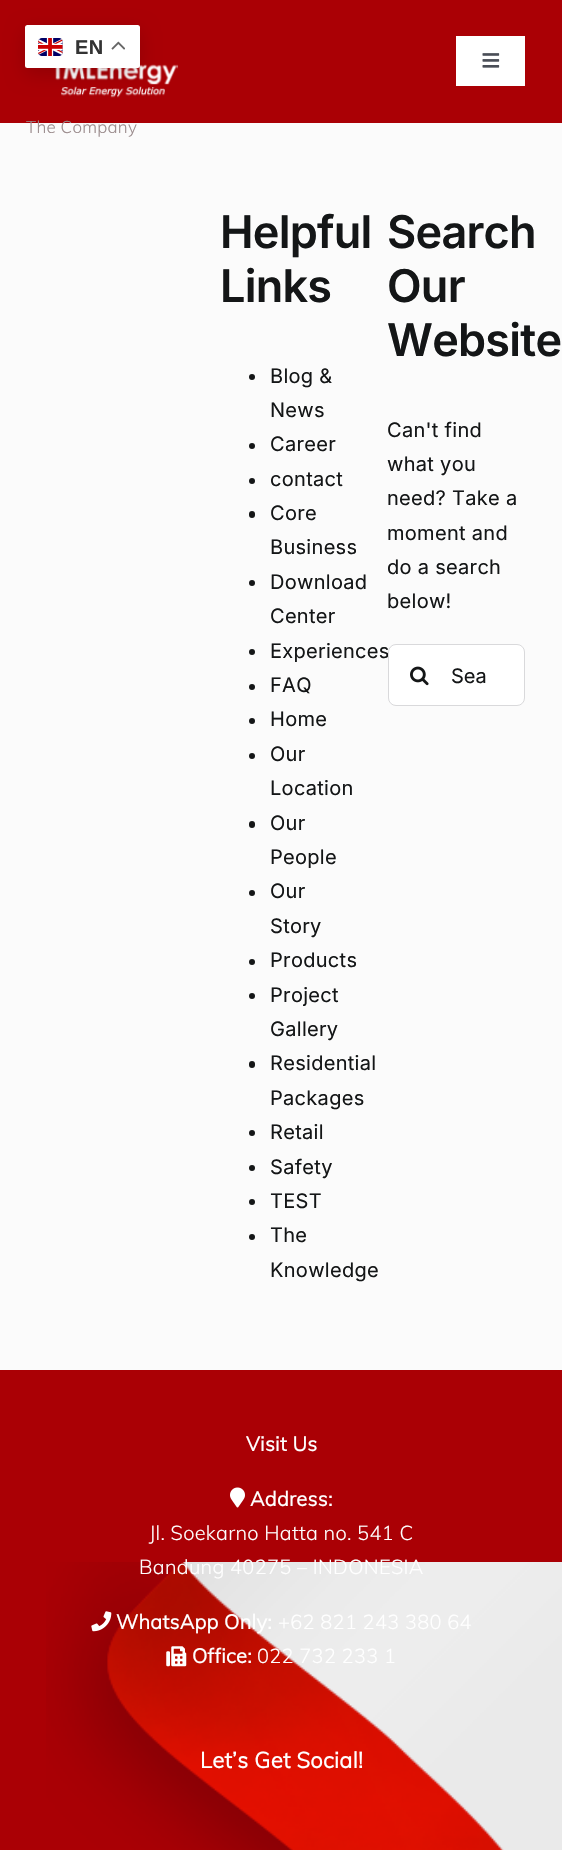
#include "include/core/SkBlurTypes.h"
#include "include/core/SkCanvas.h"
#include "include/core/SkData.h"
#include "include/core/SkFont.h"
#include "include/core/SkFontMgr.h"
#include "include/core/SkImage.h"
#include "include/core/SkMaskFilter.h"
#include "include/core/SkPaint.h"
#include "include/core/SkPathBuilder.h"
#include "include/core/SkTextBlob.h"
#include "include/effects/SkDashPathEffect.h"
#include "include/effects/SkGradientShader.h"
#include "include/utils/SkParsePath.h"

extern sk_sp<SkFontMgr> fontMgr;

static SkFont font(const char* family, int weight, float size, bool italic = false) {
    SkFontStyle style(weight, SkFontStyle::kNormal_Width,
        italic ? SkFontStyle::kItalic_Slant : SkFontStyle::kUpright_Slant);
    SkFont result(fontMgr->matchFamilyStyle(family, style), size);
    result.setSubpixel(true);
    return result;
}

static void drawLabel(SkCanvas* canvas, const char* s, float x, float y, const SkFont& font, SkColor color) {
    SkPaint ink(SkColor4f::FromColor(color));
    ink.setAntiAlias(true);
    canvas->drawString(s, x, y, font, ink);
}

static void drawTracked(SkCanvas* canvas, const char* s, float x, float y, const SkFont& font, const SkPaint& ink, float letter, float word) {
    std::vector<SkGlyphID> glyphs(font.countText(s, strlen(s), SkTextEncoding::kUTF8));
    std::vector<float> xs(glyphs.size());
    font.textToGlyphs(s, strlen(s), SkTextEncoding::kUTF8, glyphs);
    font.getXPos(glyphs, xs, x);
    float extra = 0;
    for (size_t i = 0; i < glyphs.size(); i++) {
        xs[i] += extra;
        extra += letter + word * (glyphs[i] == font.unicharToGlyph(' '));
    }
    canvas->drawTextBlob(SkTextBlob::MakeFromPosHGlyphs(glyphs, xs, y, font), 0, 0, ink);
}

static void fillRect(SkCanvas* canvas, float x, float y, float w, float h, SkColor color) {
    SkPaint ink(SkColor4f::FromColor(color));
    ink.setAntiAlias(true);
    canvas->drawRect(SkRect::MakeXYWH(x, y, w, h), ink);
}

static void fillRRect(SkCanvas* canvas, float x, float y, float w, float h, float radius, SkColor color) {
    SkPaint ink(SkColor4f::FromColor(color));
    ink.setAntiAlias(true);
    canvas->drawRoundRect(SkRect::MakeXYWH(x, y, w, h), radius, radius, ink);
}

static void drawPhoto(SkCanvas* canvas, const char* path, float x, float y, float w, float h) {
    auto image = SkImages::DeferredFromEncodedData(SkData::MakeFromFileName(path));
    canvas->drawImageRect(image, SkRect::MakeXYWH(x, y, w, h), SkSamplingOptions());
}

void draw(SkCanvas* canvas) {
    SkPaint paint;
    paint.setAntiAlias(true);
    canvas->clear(0xFFFBFBFB);
    fillRect(canvas, 0, 0, 562, 123, 0xFFAA0005);
    drawPhoto(canvas, "assets/img3.png", 55, 64, 124, 34);
    paint.setColor(0x26000000);
    paint.setMaskFilter(SkMaskFilter::MakeBlur(kNormal_SkBlurStyle, 9.5f));
    canvas->drawRoundRect(SkRect::MakeXYWH(25, 31, 115, 43), 2.5f, 2.5f, paint);
    paint.setMaskFilter(nullptr);
    fillRRect(canvas, 25, 25, 115, 43, 2.5f, 0xFFFFFFFF);
    drawPhoto(canvas, "assets/img1.png", 38, 38, 25, 18);
    SkFont font1 = font("Liberation Sans", 700, 20);
    paint.setColor(0xFF333333);
    drawTracked(canvas, "EN", 75, 54, font1, paint, 0.3f, 0);
    drawPhoto(canvas, "assets/img2.png", 111, 41, 14, 9);
    fillRect(canvas, 456, 36, 69, 50, 0xFFFFFFFF);
    drawPhoto(canvas, "assets/img4.png", 482, 53, 18, 15);
    SkFont font2 = font("Muli", 300, 17);
    paint.setColor(0xFF9B8C8D);
    drawTracked(canvas, "The Company", 26, 133, font2, paint, 0.25f, 0);
    SkFont font3 = font("Inter", 600, 45);
    paint.setColor(0xFF141617);
    drawTracked(canvas, "Helpful", 220, 248, font3, paint, -0.75f, 0);
    drawTracked(canvas, "Links", 220, 302, font3, paint, -0.75f, 0);
    canvas->drawCircle(252, 377, 3, paint);
    SkFont font4 = font("Inter", 400, 20);
    drawTracked(canvas, "Blog &", 270, 383, font4, paint, 0.3f, 0);
    drawTracked(canvas, "News", 270, 417, font4, paint, 0.3f, 0);
    canvas->drawCircle(252, 446, 3, paint);
    drawTracked(canvas, "Career", 270, 451, font4, paint, 0.3f, 0);
    canvas->drawCircle(252, 481, 3, paint);
    drawTracked(canvas, "contact", 270, 486, font4, paint, 0.3f, 0);
    fillRRect(canvas, 249, 511, 6, 7, 3, 0xFF141617);
    drawTracked(canvas, "Core", 270, 520, font4, paint, 0.3f, 0);
    drawTracked(canvas, "Business", 270, 554, font4, paint, 0.3f, 0);
    canvas->drawCircle(252, 583, 3, paint);
    drawTracked(canvas, "Download", 270, 589, font4, paint, 0.3f, 0);
    drawTracked(canvas, "Center", 270, 623, font4, paint, 0.3f, 0);
    canvas->drawCircle(252, 652, 3, paint);
    drawTracked(canvas, "Experiences", 270, 658, font4, paint, 0.3f, 0);
    canvas->drawCircle(252, 687, 3, paint);
    drawTracked(canvas, "FAQ", 270, 692, font4, paint, 0.3f, 0);
    canvas->drawCircle(252, 721, 3, paint);
    drawTracked(canvas, "Home", 270, 726, font4, paint, 0.3f, 0);
    canvas->drawCircle(252, 756, 3, paint);
    drawTracked(canvas, "Our", 270, 761, font4, paint, 0.3f, 0);
    drawTracked(canvas, "Location", 270, 795, font4, paint, 0.3f, 0);
    fillRRect(canvas, 249, 821, 6, 7, 3, 0xFF141617);
    drawTracked(canvas, "Our", 270, 830, font4, paint, 0.3f, 0);
    drawTracked(canvas, "People", 270, 864, font4, paint, 0.3f, 0);
    canvas->drawCircle(252, 893, 3, paint);
    drawTracked(canvas, "Our", 270, 898, font4, paint, 0.3f, 0);
    drawTracked(canvas, "Story", 270, 933, font4, paint, 0.3f, 0);
    canvas->drawCircle(252, 962, 3, paint);
    drawTracked(canvas, "Products", 270, 967, font4, paint, 0.3f, 0);
    canvas->drawCircle(252, 996, 3, paint);
    drawTracked(canvas, "Project", 270, 1002, font4, paint, 0.3f, 0);
    drawTracked(canvas, "Gallery", 270, 1036, font4, paint, 0.3f, 0);
    fillRRect(canvas, 249, 1061, 6, 7, 3, 0xFF141617);
    drawTracked(canvas, "Residential", 270, 1070, font4, paint, 0.3f, 0);
    drawTracked(canvas, "Packages", 270, 1105, font4, paint, 0.3f, 0);
    canvas->drawCircle(252, 1133, 3, paint);
    drawTracked(canvas, "Retail", 270, 1139, font4, paint, 0.3f, 0);
    canvas->drawCircle(252, 1168, 3, paint);
    drawTracked(canvas, "Safety", 270, 1174, font4, paint, 0.3f, 0);
    canvas->drawCircle(252, 1202, 3, paint);
    drawTracked(canvas, "TEST", 270, 1208, font4, paint, 0.3f, 0);
    canvas->drawCircle(252, 1237, 3, paint);
    drawTracked(canvas, "The", 270, 1242, font4, paint, 0.3f, 0);
    drawTracked(canvas, "Knowledge", 270, 1277, font4, paint, 0.3f, 0);
    drawTracked(canvas, "Search", 387, 248, font3, paint, -0.75f, 0);
    drawTracked(canvas, "Our", 387, 302, font3, paint, -0.75f, 0);
    drawTracked(canvas, "Website", 387, 356, font3, paint, -0.75f, 0);
    drawTracked(canvas, "Can't find", 387, 437, font4, paint, 0.3f, 0);
    drawTracked(canvas, "what you", 387, 471, font4, paint, 0.3f, 0);
    drawTracked(canvas, "need? Take a", 387, 505, font4, paint, 0.3f, 0);
    drawTracked(canvas, "moment and", 387, 540, font4, paint, 0.3f, 0);
    drawTracked(canvas, "do a search", 387, 574, font4, paint, 0.3f, 0);
    drawTracked(canvas, "below!", 387, 608, font4, paint, 0.3f, 0);
    paint.setColor(0xFFFFFFFF);
    canvas->drawRoundRect(SkRect::MakeXYWH(388.5f, 644.5f, 136, 61), 7.5f, 7.5f, paint);
    paint.setStroke(true);
    paint.setStrokeWidth(1);
    paint.setColor(0xFFD9D9DB);
    canvas->drawRoundRect(SkRect::MakeXYWH(388.5f, 644.5f, 136, 61), 7.5f, 7.5f, paint);
    drawPhoto(canvas, "assets/img5.png", 410, 666, 19, 20);
    drawLabel(canvas, "Sea", 451, 683, font4, 0xFF141617);
    fillRect(canvas, 0, 1370, 562, 480, 0xFFAA0005);
    drawPhoto(canvas, "assets/img6.png", 46, 1562, 516, 288);
    SkFont font5 = font("Muli", 700, 20);
    paint.setStroke(false);
    paint.setColor(0xFFFFFFFF);
    drawTracked(canvas, "Visit Us", 246, 1451, font5, paint, 0.3f, 0);
    drawPhoto(canvas, "assets/img7.png", 230, 1487, 15, 21);
    drawTracked(canvas, "Address:", 250, 1506, font5, paint, 0.3f, 0);
    SkFont font6 = font("Muli", 300, 20);
    drawTracked(canvas, "Jl. Soekarno Hatta no. 541 C", 149, 1540, font6, paint, 0.3f, 0);
    drawTracked(canvas, "Bandung 40275 – INDONESIA", 139, 1574, font6, paint, 0.3f, 0);
    drawPhoto(canvas, "assets/img8.png", 91, 1611, 21, 21);
    drawTracked(canvas, "WhatsApp Only:", 116, 1629, font5, paint, 0.3f, 0);
    drawTracked(canvas, "+62 821 243 380 64", 278, 1629, font6, paint, 0.3f, 0);
    drawPhoto(canvas, "assets/img9.png", 166, 1646, 21, 21);
    drawTracked(canvas, "Office:", 192, 1663, font5, paint, 0.3f, 0);
    drawTracked(canvas, "022 732 233 1", 257, 1663, font6, paint, 0.3f, 0);
    SkFont font7 = font("Muli", 700, 22);
    drawTracked(canvas, "Let’s Get Social!", 200, 1768, font7, paint, 0.3f, 0);
}
